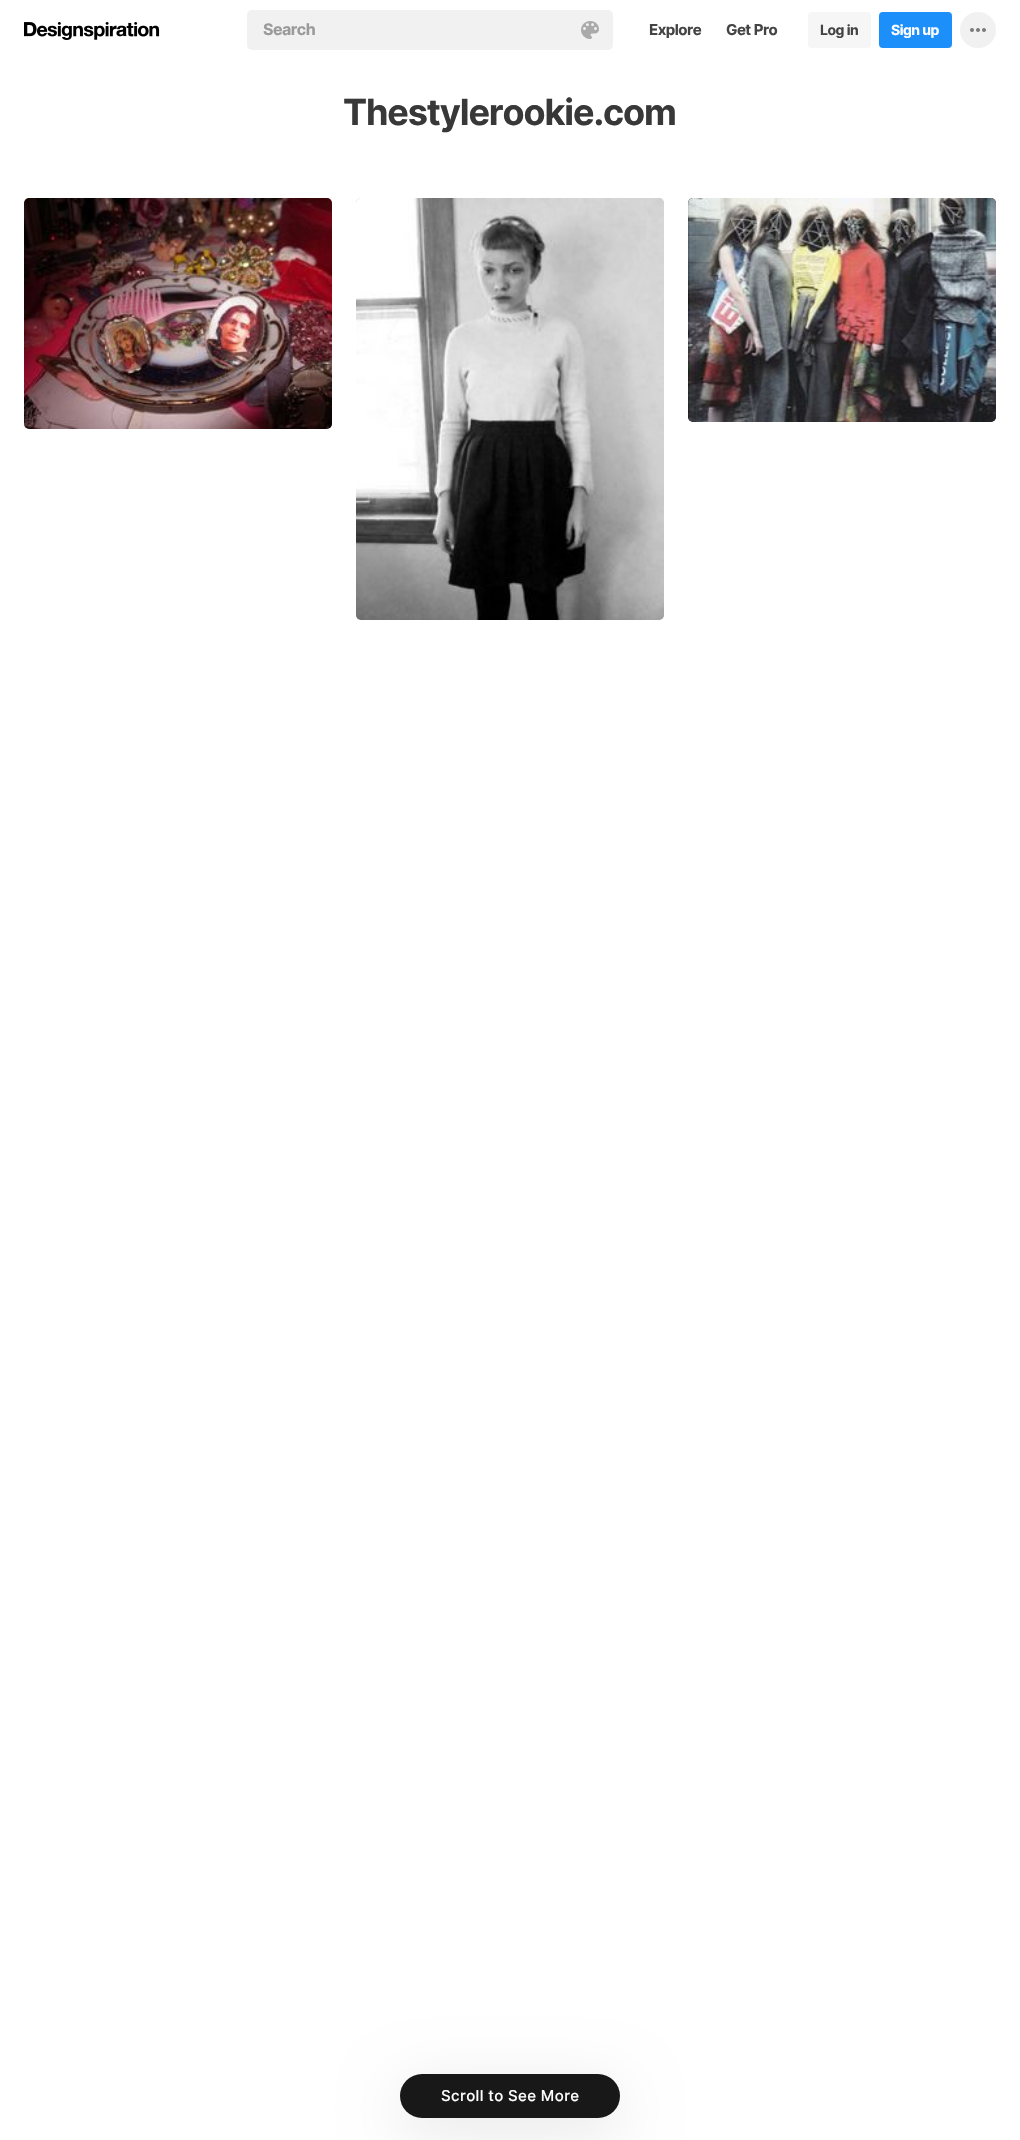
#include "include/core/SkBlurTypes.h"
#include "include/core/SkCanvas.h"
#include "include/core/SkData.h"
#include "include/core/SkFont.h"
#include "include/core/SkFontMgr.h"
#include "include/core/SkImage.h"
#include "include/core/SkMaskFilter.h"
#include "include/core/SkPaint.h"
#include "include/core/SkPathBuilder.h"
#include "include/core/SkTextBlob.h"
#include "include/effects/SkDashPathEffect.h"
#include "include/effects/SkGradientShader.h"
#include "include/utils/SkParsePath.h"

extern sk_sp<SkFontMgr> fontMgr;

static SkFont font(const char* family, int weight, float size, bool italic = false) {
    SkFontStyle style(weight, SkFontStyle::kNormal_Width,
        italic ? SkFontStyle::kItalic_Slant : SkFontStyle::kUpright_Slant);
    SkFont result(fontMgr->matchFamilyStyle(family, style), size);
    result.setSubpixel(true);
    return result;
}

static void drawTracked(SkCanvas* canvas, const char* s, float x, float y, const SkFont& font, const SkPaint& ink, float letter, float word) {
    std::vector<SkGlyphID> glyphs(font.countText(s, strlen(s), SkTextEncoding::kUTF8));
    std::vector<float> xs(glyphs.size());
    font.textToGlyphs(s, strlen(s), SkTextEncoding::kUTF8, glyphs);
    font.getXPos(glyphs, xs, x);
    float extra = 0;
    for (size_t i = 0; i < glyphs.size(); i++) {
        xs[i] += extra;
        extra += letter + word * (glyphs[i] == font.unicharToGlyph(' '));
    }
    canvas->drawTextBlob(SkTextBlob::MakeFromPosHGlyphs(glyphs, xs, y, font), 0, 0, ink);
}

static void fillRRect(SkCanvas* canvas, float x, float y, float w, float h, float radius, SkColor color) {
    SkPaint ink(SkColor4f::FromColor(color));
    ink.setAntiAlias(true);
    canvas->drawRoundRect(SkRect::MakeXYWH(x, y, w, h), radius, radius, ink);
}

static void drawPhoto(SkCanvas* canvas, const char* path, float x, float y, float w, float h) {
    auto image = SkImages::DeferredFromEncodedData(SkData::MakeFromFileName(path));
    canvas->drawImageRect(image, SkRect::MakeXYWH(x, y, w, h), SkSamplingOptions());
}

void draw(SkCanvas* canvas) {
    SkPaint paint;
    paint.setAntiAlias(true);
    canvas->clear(0xFFFFFFFF);
    drawPhoto(canvas, "assets/img1.png", 24, 22, 136, 18);
    fillRRect(canvas, 247, 10, 366, 40, 5, 0xFFF1F1F1);
    SkFont font1 = font("Inter", 700, 16);
    paint.setColor(0xFF9A9A9A);
    drawTracked(canvas, "Search", 263, 35, font1, paint, -0.5f, 0);
    drawPhoto(canvas, "assets/img2.png", 581, 21, 18, 18);
    SkFont font2 = font("Inter", 700, 15);
    paint.setColor(0xFF444444);
    drawTracked(canvas, "Explore", 649, 35, font2, paint, -0.5f, 0);
    drawTracked(canvas, "Get Pro", 726, 35, font2, paint, -0.5f, 0);
    fillRRect(canvas, 808, 12, 63, 36, 4, 0xFFF6F6F6);
    SkFont font3 = font("Inter", 700, 14);
    drawTracked(canvas, "Log in", 820, 35, font3, paint, -0.5f, 0);
    fillRRect(canvas, 879, 12, 73, 36, 4, 0xFF1D8FFB);
    paint.setColor(0xFFFFFFFF);
    drawTracked(canvas, "Sign up", 891, 35, font3, paint, -0.5f, 0);
    paint.setColor(0xFFF1F1F1);
    canvas->drawCircle(978, 30, 18, paint);
    drawPhoto(canvas, "assets/img3.png", 970, 28, 16, 4);
    SkFont font4 = font("Inter", 700, 36);
    paint.setColor(0xFF383838);
    drawTracked(canvas, "Thestylerookie.com", 343, 125, font4, paint, -1.1f, 0);
    fillRRect(canvas, 24, 198, 308, 231, 5, 0xFF845F59);
    drawPhoto(canvas, "assets/img4.png", 24, 198, 308, 231);
    fillRRect(canvas, 356, 198, 308, 422, 5, 0xFFC8C8C8);
    drawPhoto(canvas, "assets/img5.png", 356, 198, 308, 422);
    fillRRect(canvas, 688, 198, 308, 224, 5, 0xFF322F32);
    drawPhoto(canvas, "assets/img6.png", 688, 198, 308, 224);
    paint.setColor(0x1A000000);
    paint.setMaskFilter(SkMaskFilter::MakeBlur(kNormal_SkBlurStyle, 30));
    canvas->drawRoundRect(SkRect::MakeXYWH(400, 2088, 220, 44), 22, 22, paint);
    paint.setMaskFilter(nullptr);
    fillRRect(canvas, 400, 2074, 220, 44, 22, 0xFF181818);
    SkFont font5 = font("Inter", 500, 15);
    paint.setColor(0xFFFFFFFF);
    drawTracked(canvas, "Scroll to See More", 441, 2101, font5, paint, 0.4f, 0);
}
